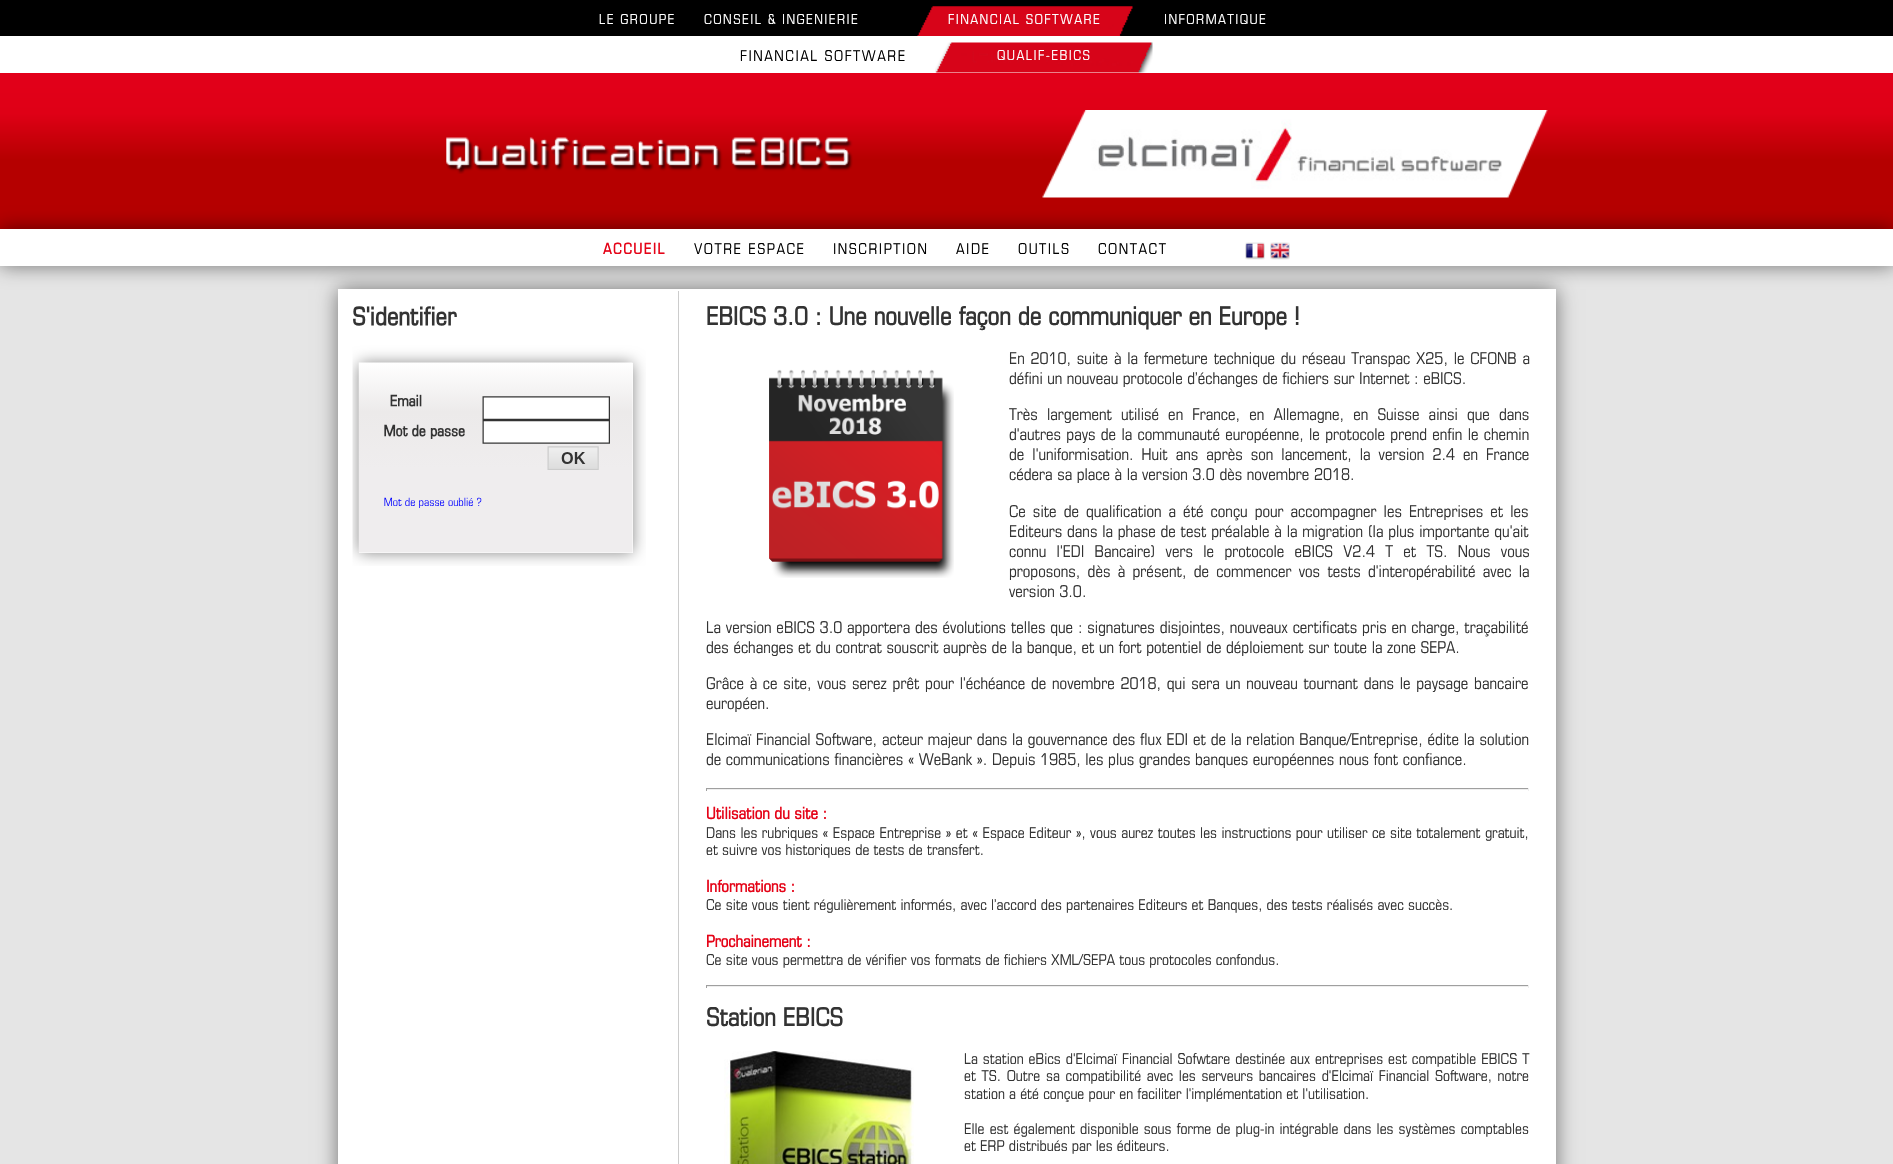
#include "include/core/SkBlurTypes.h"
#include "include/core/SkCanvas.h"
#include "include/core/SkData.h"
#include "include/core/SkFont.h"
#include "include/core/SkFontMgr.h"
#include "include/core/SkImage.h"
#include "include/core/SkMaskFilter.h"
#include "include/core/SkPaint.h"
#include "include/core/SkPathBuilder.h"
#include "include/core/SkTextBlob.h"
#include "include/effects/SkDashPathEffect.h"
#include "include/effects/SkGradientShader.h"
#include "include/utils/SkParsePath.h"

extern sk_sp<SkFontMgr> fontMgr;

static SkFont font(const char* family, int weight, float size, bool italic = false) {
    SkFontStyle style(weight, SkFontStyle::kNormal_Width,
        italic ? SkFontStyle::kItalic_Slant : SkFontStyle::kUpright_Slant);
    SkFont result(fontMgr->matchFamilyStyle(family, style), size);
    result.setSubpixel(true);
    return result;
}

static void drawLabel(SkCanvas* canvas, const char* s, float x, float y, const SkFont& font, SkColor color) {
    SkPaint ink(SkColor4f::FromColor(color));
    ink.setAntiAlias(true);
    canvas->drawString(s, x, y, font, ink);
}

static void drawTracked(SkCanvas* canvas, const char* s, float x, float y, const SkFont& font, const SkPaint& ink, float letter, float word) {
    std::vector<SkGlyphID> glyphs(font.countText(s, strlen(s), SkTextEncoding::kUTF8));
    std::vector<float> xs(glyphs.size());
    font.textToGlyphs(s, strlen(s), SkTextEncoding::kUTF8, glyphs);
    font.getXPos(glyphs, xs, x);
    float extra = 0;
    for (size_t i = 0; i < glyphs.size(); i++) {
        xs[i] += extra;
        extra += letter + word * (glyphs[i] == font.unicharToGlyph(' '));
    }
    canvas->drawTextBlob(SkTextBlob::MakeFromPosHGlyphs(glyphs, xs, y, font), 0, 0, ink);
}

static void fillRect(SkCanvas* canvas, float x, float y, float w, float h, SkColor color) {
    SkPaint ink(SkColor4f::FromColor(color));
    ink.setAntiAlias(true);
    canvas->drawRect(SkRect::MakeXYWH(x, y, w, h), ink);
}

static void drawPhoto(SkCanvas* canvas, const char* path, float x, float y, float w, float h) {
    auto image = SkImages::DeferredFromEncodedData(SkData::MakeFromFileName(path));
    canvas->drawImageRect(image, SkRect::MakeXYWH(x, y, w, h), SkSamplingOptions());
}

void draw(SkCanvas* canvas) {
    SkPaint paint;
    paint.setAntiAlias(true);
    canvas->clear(0xFFE5E5E5);
    fillRect(canvas, 0, 0, 1893, 36, 0xFF000000);
    SkFont font1 = font("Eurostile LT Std", 400, 13.75f);
    paint.setColor(0xFFFFFFFF);
    drawTracked(canvas, "LE GROUPE", 599, 24, font1, paint, 1.4f, 0);
    drawTracked(canvas, "CONSEIL & INGENIERIE", 704, 24, font1, paint, 1.4f, 0);
    drawPhoto(canvas, "assets/img1.png", 917, 6, 216, 30);
    drawTracked(canvas, "FINANCIAL SOFTWARE", 948, 24, font1, paint, 1.4f, 0);
    drawTracked(canvas, "INFORMATIQUE", 1164, 24, font1, paint, 1.4f, 0);
    fillRect(canvas, 0, 36, 1893, 37, 0xFFFFFFFF);
    SkFont font2 = font("Eurostile LT Std", 400, 15);
    paint.setColor(0xFF000000);
    drawTracked(canvas, "FINANCIAL SOFTWARE", 740, 61, font2, paint, 1.5f, 0);
    drawPhoto(canvas, "assets/img2.png", 935, 42, 218, 31);
    paint.setColor(0xFFFFFFFF);
    drawTracked(canvas, "QUALIF-EBICS", 997, 60, font1, paint, 1.4f, 0);
    paint.setColor(0x80000000);
    paint.setMaskFilter(SkMaskFilter::MakeBlur(kNormal_SkBlurStyle, 10));
    canvas->drawRect(SkRect::MakeXYWH(338, 289, 1218, 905), paint);
    paint.setMaskFilter(nullptr);
    fillRect(canvas, 338, 289, 1218, 875, 0xFFFFFFFF);
    fillRect(canvas, 678, 291, 1, 873, 0xFFCCCCCC);
    {
        const SkColor colors[] = {0xFFB50000, 0xFFDF0016, 0xFFE2001A};
        const float stops[] = {0.44f, 0.74f, 1};
        const SkPoint ends[] = {{947, 229}, {947, 73}};
        paint.setShader(SkGradientShader::MakeLinear(ends, colors, stops, 3, SkTileMode::kClamp));
        paint.setAlpha(255);
    }
    canvas->drawRect(SkRect::MakeXYWH(0, 73, 1893, 156), paint);
    paint.setShader(nullptr);
    paint.setColor(0x80000000);
    paint.setMaskFilter(SkMaskFilter::MakeBlur(kNormal_SkBlurStyle, 10));
    canvas->drawRect(SkRect::MakeXYWH(0, 229, 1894, 37), paint);
    paint.setMaskFilter(nullptr);
    fillRect(canvas, 0, 229, 1893, 37, 0xFFFFFFFF);
    SkFont font3 = font("Eurostile LT Std", 700, 15);
    paint.setColor(0xFFE50317);
    drawTracked(canvas, "ACCUEIL", 603, 254, font3, paint, 1.5f, 0);
    paint.setColor(0xFF000000);
    drawTracked(canvas, "VOTRE ESPACE", 694, 254, font2, paint, 1.5f, 0);
    drawTracked(canvas, "INSCRIPTION", 833, 254, font2, paint, 1.5f, 0);
    drawTracked(canvas, "AIDE", 956, 254, font2, paint, 1.5f, 0);
    drawTracked(canvas, "OUTILS", 1018, 254, font2, paint, 1.5f, 0);
    drawTracked(canvas, "CONTACT", 1098, 254, font2, paint, 1.5f, 0);
    drawPhoto(canvas, "assets/img3.png", 1245, 242, 20, 18);
    drawPhoto(canvas, "assets/img4.png", 1270, 242, 20, 18);
    drawPhoto(canvas, "assets/img5.png", 352, 306, 294, 260);
    SkFont font4 = font("Eurostile LT Std", 700, 25);
    drawLabel(canvas, "EBICS 3.0 : Une nouvelle façon de communiquer en Europe !", 706, 325, font4, 0xFF333333);
    drawPhoto(canvas, "assets/img6.png", 769, 369, 185, 209);
    SkFont font5 = font("Eurostile LT Std", 400, 16.25f);
    paint.setColor(0xFF333333);
    drawTracked(canvas, "En 2010, suite à la fermeture technique du réseau Transpac X25, le CFONB a", 1009, 364, font5, paint, 0, 1.25f);
    drawLabel(canvas, "défini un nouveau protocole d’échanges de fichiers sur Internet : eBICS.", 1009, 384, font5, 0xFF333333);
    drawTracked(canvas, "Très largement utilisé en France, en Allemagne, en Suisse ainsi que dans", 1009, 420, font5, paint, 0, 4.6f);
    drawTracked(canvas, "d'autres pays de la communauté européenne, le protocole prend enfin le chemin", 1009, 440, font5, paint, 0, 0.75f);
    drawTracked(canvas, "de l'uniformisation. Huit ans après son lancement, la version 2.4 en France", 1009, 460, font5, paint, 0, 3.5f);
    drawLabel(canvas, "cédera sa place à la version 3.0 dès novembre 2018.", 1009, 480, font5, 0xFF333333);
    drawTracked(canvas, "Ce site de qualification a été conçu pour accompagner les Entreprises et les", 1009, 517, font5, paint, 0, 2.5f);
    drawTracked(canvas, "Editeurs dans la phase de test préalable à la migration (la plus importante qu'ait", 1009, 537, font5, paint, 0, 0.25f);
    drawTracked(canvas, "connu l'EDI Bancaire) vers le protocole eBICS V2.4 T et TS. Nous vous", 1009, 557, font5, paint, 0, 5.75f);
    drawTracked(canvas, "proposons, dès à présent, de commencer vos tests d'interopérabilité avec la", 1009, 577, font5, paint, 0, 2.75f);
    drawLabel(canvas, "version 3.0.", 1009, 597, font5, 0xFF333333);
    drawTracked(canvas, "La version eBICS 3.0 apportera des évolutions telles que : signatures disjointes, nouveaux certificats pris en charge, traçabilité", 706, 633, font5, paint, 0, 0.25f);
    drawLabel(canvas, "des échanges et du contrat souscrit auprès de la banque, et un fort potentiel de déploiement sur toute la zone SEPA.", 706, 653, font5, 0xFF333333);
    drawTracked(canvas, "Grâce à ce site, vous serez prêt pour l'échéance de novembre 2018, qui sera un nouveau tournant dans le paysage bancaire", 706, 689, font5, paint, 0, 1.2f);
    drawLabel(canvas, "européen.", 706, 709, font5, 0xFF333333);
    drawTracked(canvas, "Elcimaï Financial Software, acteur majeur dans la gouvernance des flux EDI et de la relation Banque/Entreprise, édite la solution", 706, 745, font5, paint, 0, 0.25f);
    drawLabel(canvas, "de communications financières « WeBank ». Depuis 1985, les plus grandes banques européennes nous font confiance.", 706, 765, font5, 0xFF333333);
    fillRect(canvas, 706, 788, 823, 1, 0xFF9F9F9F);
    fillRect(canvas, 1528, 788, 1, 3, 0xFFEEEEEE);
    fillRect(canvas, 706, 789, 823, 1, 0xFFEEEEEE);
    fillRect(canvas, 706, 788, 1, 3, 0xFF9F9F9F);
    SkFont font6 = font("Eurostile LT Std", 700, 16.25f);
    drawLabel(canvas, "Utilisation du site :", 706, 819, font6, 0xFFE50317);
    drawTracked(canvas, "Dans les rubriques « Espace Entreprise » et « Espace Editeur », vous aurez toutes les instructions pour utiliser ce site totalement gratuit,", 706, 838, font2, paint, 0, 0.25f);
    drawLabel(canvas, "et suivre vos historiques de tests de transfert.", 706, 855, font2, 0xFF333333);
    drawLabel(canvas, "Informations :", 706, 892, font6, 0xFFE50317);
    drawLabel(canvas, "Ce site vous tient régulièrement informés, avec l’accord des partenaires Editeurs et Banques, des tests réalisés avec succès.", 706, 910, font2, 0xFF333333);
    drawLabel(canvas, "Prochainement :", 706, 947, font6, 0xFFE50317);
    drawLabel(canvas, "Ce site vous permettra de vérifier vos formats de fichiers XML/SEPA tous protocoles confondus.", 706, 965, font2, 0xFF333333);
    fillRect(canvas, 706, 985, 823, 1, 0xFF9F9F9F);
    fillRect(canvas, 1528, 985, 1, 3, 0xFFEEEEEE);
    fillRect(canvas, 706, 986, 823, 1, 0xFFEEEEEE);
    fillRect(canvas, 706, 985, 1, 3, 0xFF9F9F9F);
    drawLabel(canvas, "Station EBICS", 706, 1026, font4, 0xFF333333);
    drawPhoto(canvas, "assets/img7.png", 724, 1051, 190, 113);
    drawTracked(canvas, "La station eBics d'Elcimaï Financial Sofwtare destinée aux entreprises est compatible EBICS T", 964, 1064, font2, paint, 0, 0.75f);
    drawTracked(canvas, "et TS. Outre sa compatibilité avec les serveurs bancaires d'Elcimaï Financial Software, notre", 964, 1081, font2, paint, 0, 1.5f);
    drawLabel(canvas, "station a été conçue pour en faciliter l'implémentation et l'utilisation.", 964, 1099, font2, 0xFF333333);
    drawTracked(canvas, "Elle est également disponible sous forme de plug-in intégrable dans les systèmes comptables", 964, 1134, font2, paint, 0, 0.9f);
    drawLabel(canvas, "et ERP distribués par les éditeurs.", 964, 1151, font2, 0xFF333333);
    drawPhoto(canvas, "assets/img8.png", 446, 137, 407, 37);
    drawPhoto(canvas, "assets/img9.png", 1042, 110, 506, 88);
}
